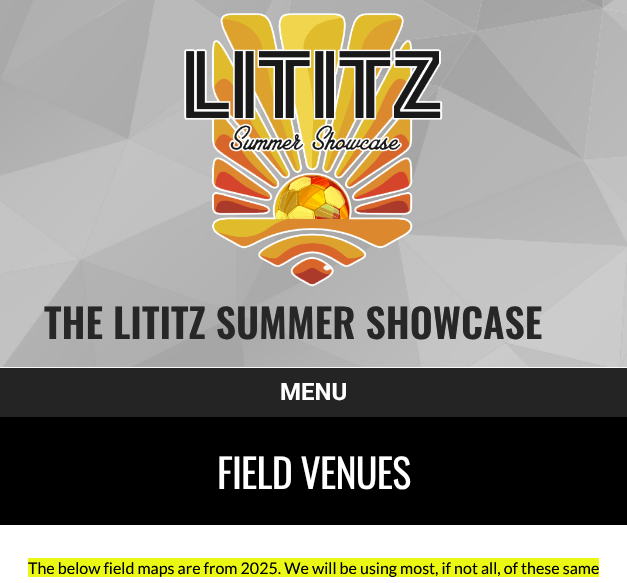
#include "include/core/SkBlurTypes.h"
#include "include/core/SkCanvas.h"
#include "include/core/SkData.h"
#include "include/core/SkFont.h"
#include "include/core/SkFontMgr.h"
#include "include/core/SkImage.h"
#include "include/core/SkMaskFilter.h"
#include "include/core/SkPaint.h"
#include "include/core/SkPathBuilder.h"
#include "include/core/SkTextBlob.h"
#include "include/effects/SkDashPathEffect.h"
#include "include/effects/SkGradientShader.h"
#include "include/utils/SkParsePath.h"

extern sk_sp<SkFontMgr> fontMgr;

static SkFont font(const char* family, int weight, float size, bool italic = false) {
    SkFontStyle style(weight, SkFontStyle::kNormal_Width,
        italic ? SkFontStyle::kItalic_Slant : SkFontStyle::kUpright_Slant);
    SkFont result(fontMgr->matchFamilyStyle(family, style), size);
    result.setSubpixel(true);
    return result;
}

static void drawLabel(SkCanvas* canvas, const char* s, float x, float y, const SkFont& font, SkColor color) {
    SkPaint ink(SkColor4f::FromColor(color));
    ink.setAntiAlias(true);
    canvas->drawString(s, x, y, font, ink);
}

static void drawTracked(SkCanvas* canvas, const char* s, float x, float y, const SkFont& font, const SkPaint& ink, float letter, float word) {
    std::vector<SkGlyphID> glyphs(font.countText(s, strlen(s), SkTextEncoding::kUTF8));
    std::vector<float> xs(glyphs.size());
    font.textToGlyphs(s, strlen(s), SkTextEncoding::kUTF8, glyphs);
    font.getXPos(glyphs, xs, x);
    float extra = 0;
    for (size_t i = 0; i < glyphs.size(); i++) {
        xs[i] += extra;
        extra += letter + word * (glyphs[i] == font.unicharToGlyph(' '));
    }
    canvas->drawTextBlob(SkTextBlob::MakeFromPosHGlyphs(glyphs, xs, y, font), 0, 0, ink);
}

static void fillRect(SkCanvas* canvas, float x, float y, float w, float h, SkColor color) {
    SkPaint ink(SkColor4f::FromColor(color));
    ink.setAntiAlias(true);
    canvas->drawRect(SkRect::MakeXYWH(x, y, w, h), ink);
}

static void drawPhoto(SkCanvas* canvas, const char* path, float x, float y, float w, float h) {
    auto image = SkImages::DeferredFromEncodedData(SkData::MakeFromFileName(path));
    canvas->drawImageRect(image, SkRect::MakeXYWH(x, y, w, h), SkSamplingOptions());
}

void draw(SkCanvas* canvas) {
    SkPaint paint;
    paint.setAntiAlias(true);
    canvas->clear(0xFFFFFFFF);
    drawPhoto(canvas, "assets/img1.png", 0, 0, 627, 367);
    fillRect(canvas, 0, 367, 627, 1, 0xFFF9F7F7);
    drawPhoto(canvas, "assets/img2.png", 184, 13, 259, 274);
    SkFont font1 = font("Oswald", 600, 40);
    drawLabel(canvas, "THE LITITZ SUMMER SHOWCASE", 44, 339, font1, 0xFF272727);
    fillRect(canvas, 0, 368, 627, 49, 0xFF242424);
    SkFont font2 = font("Roboto", 700, 24);
    drawLabel(canvas, "MENU", 280, 400, font2, 0xFFFFFFFF);
    fillRect(canvas, 0, 417, 627, 108, 0xFF000000);
    SkFont font3 = font("Oswald", 400, 40);
    paint.setColor(0xFFFFFFFF);
    drawTracked(canvas, "FIELD VENUES", 217, 489, font3, paint, -0.75f, 0);
    fillRect(canvas, 28, 558, 571, 19, 0xFFEBF813);
    SkFont font4 = font("Lato", 400, 16);
    drawLabel(canvas, "The below field maps are from 2025. We will be using most, if not all, of these same", 28, 574, font4, 0xFF000000);
}
